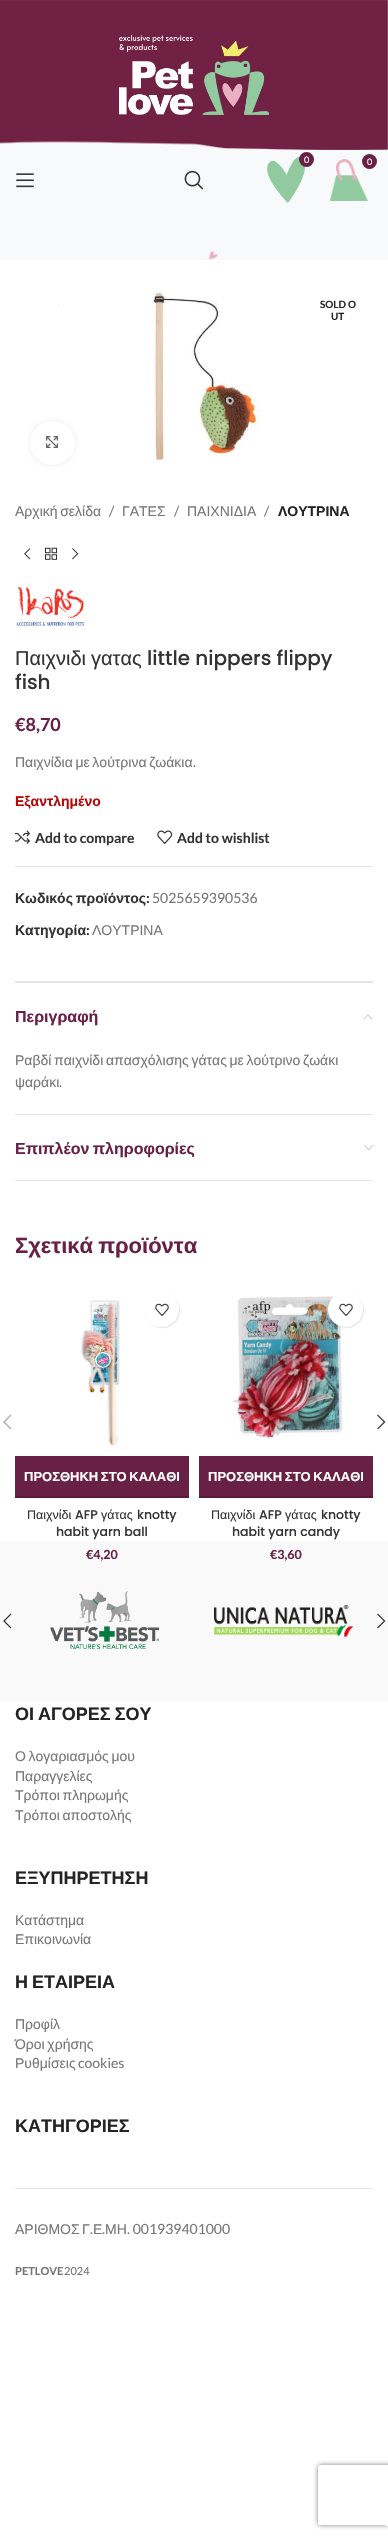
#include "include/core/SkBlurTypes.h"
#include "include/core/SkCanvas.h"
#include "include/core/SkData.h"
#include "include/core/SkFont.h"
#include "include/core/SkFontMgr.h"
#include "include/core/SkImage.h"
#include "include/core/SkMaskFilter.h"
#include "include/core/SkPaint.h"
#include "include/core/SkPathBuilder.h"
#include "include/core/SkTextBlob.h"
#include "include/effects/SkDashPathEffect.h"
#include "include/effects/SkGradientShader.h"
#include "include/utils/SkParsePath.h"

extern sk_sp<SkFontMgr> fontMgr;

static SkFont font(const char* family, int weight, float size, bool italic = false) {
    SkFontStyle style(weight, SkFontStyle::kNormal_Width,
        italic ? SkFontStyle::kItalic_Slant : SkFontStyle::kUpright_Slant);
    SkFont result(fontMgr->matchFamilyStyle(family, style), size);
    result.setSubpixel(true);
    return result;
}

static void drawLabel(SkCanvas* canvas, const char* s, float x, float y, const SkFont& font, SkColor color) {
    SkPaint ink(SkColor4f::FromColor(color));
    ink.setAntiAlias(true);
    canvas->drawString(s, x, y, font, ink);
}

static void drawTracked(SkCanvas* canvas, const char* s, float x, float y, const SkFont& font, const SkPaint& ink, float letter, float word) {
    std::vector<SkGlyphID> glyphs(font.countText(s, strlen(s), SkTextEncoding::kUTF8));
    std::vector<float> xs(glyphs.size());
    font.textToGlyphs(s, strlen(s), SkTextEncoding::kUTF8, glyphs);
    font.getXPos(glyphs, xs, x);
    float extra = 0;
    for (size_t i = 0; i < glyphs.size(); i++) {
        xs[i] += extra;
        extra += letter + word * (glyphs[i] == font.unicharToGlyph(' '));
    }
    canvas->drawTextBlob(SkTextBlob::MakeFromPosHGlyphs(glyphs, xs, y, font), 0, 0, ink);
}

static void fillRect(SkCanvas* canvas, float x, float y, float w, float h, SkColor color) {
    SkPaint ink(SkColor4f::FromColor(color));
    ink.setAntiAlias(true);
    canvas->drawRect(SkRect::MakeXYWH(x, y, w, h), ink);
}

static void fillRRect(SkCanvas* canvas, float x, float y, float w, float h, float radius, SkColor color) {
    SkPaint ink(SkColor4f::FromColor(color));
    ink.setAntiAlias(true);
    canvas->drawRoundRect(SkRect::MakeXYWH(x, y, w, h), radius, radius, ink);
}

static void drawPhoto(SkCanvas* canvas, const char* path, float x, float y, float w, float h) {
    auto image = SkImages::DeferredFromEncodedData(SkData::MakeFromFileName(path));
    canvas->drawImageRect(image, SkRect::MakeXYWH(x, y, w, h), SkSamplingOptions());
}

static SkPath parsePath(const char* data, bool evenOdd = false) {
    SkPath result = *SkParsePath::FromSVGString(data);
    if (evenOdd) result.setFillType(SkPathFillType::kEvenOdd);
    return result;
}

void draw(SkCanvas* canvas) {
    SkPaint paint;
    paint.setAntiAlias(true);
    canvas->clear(0xFFFFFFFF);
    fillRect(canvas, 0, 0, 388, 260, 0xFFF8F9FA);
    drawPhoto(canvas, "assets/img1.png", 0, 0, 388, 150);
    drawPhoto(canvas, "assets/img2.png", 119, 35, 150, 80);
    drawPhoto(canvas, "assets/img3.png", 267, 157, 38, 46);
    paint.setColor(0xFF682045);
    canvas->drawCircle(306.5f, 159.5f, 7.5f, paint);
    SkFont font1 = font("Lato", 400, 9);
    drawLabel(canvas, "0", 304, 163, font1, 0xFFFFFFFF);
    drawPhoto(canvas, "assets/img4.png", 330, 159, 38, 42);
    canvas->drawCircle(369.5f, 161.5f, 7.5f, paint);
    drawLabel(canvas, "0", 367, 165, font1, 0xFFFFFFFF);
    drawPhoto(canvas, "assets/img5.png", 16, 173, 18, 15);
    drawPhoto(canvas, "assets/img6.png", 184, 170, 20, 20);
    drawPhoto(canvas, "assets/img7.png", 209, 250, 9, 10);
    drawPhoto(canvas, "assets/img8.png", 58, 289, 204, 176);
    SkFont font2 = font("Lato", 700, 10);
    drawLabel(canvas, "SOLD O", 320, 308, font2, 0xFF242424);
    drawLabel(canvas, "UT", 331, 320, font2, 0xFF242424);
    paint.setColor(0x14000000);
    paint.setMaskFilter(SkMaskFilter::MakeBlur(kNormal_SkBlurStyle, 2.5f));
    canvas->drawRoundRect(SkRect::MakeXYWH(30, 421, 45, 44), 22, 22, paint);
    paint.setMaskFilter(nullptr);
    fillRRect(canvas, 30, 421, 45, 44, 22, 0xFFFFFFFF);
    drawPhoto(canvas, "assets/img9.png", 46, 436, 12, 12);
    SkFont font3 = font("Liberation Sans", 400, 14);
    paint.setColor(0xFF767676);
    drawTracked(canvas, "Αρχική σελίδα", 15, 516, font3, paint, 0, -1.25f);
    SkFont font4 = font("Lato", 400, 14);
    drawLabel(canvas, "/", 109, 516, font4, 0xFF767676);
    drawLabel(canvas, "ΓΑΤΕΣ", 122, 516, font3, 0xFF767676);
    drawLabel(canvas, "/", 174, 516, font4, 0xFF767676);
    drawLabel(canvas, "ΠΑΙΧΝΙΔΙΑ", 187, 516, font3, 0xFF767676);
    drawLabel(canvas, "/", 264, 516, font4, 0xFF767676);
    SkFont font5 = font("Liberation Sans", 700, 14);
    drawLabel(canvas, "ΛΟΥΤΡΙΝΑ", 278, 516, font5, 0xFF242424);
    drawPhoto(canvas, "assets/img10.png", 24, 548, 7, 12);
    drawPhoto(canvas, "assets/img11.png", 45, 547, 12, 13);
    drawPhoto(canvas, "assets/img12.png", 72, 548, 7, 12);
    drawPhoto(canvas, "assets/img13.png", 16, 587, 69, 39);
    SkFont font6 = font("Liberation Sans", 400, 20);
    drawLabel(canvas, "Παιχνιδι", 15, 665, font6, 0xFF333333);
    drawLabel(canvas, "γατας", 91, 665, font6, 0xFF333333);
    SkFont font7 = font("Poppins", 500, 20);
    drawLabel(canvas, "little nippers flippy", 147, 665, font7, 0xFF333333);
    drawLabel(canvas, "fish", 15, 689, font7, 0xFF333333);
    SkFont font8 = font("Lato", 700, 18);
    drawLabel(canvas, "€8,70", 15, 731, font8, 0xFF682045);
    drawTracked(canvas, "Παιχνίδια με λούτρινα ζωάκια", 15, 767, font3, paint, 0, -1.25f);
    drawLabel(canvas, ".", 193, 767, font4, 0xFF767676);
    drawLabel(canvas, "Εξαντλημένο", 15, 806, font5, 0xFFB50808);
    drawPhoto(canvas, "assets/img14.png", 15, 830, 15, 14);
    SkFont font9 = font("Lato", 700, 14);
    drawLabel(canvas, "Add to compare", 35, 843, font9, 0xFF333333);
    drawPhoto(canvas, "assets/img15.png", 157, 830, 16, 14);
    drawLabel(canvas, "Add to wishlist", 177, 843, font9, 0xFF333333);
    fillRect(canvas, 15, 866, 358, 1, 0xFFE4E4E4);
    paint.setColor(0xFF333333);
    drawTracked(canvas, "Κωδικός προϊόντος", 15, 903, font5, paint, 0, -1);
    drawLabel(canvas, ":", 146, 903, font9, 0xFF333333);
    drawLabel(canvas, "5025659390536", 152, 903, font4, 0xFF767676);
    drawLabel(canvas, "Κατηγορία", 15, 935, font5, 0xFF333333);
    drawLabel(canvas, ":", 86, 935, font9, 0xFF333333);
    drawLabel(canvas, "ΛΟΥΤΡΙΝΑ", 92, 935, font3, 0xFF767676);
    fillRect(canvas, 15, 981, 358, 2, 0xFFE4E4E4);
    fillRect(canvas, 15, 1114, 358, 1, 0xFFE4E4E4);
    SkFont font10 = font("Liberation Sans", 700, 16);
    drawLabel(canvas, "Περιγραφή", 15, 1022, font10, 0xFF682045);
    drawPhoto(canvas, "assets/img16.png", 363, 1014, 10, 6);
    paint.setColor(0xFF767676);
    drawTracked(canvas, "Ραβδί παιχνίδι απασχόλισης γάτας με λούτρινο ζωάκι", 15, 1065, font3, paint, 0, -1.25f);
    drawLabel(canvas, "ψαράκι", 15, 1087, font3, 0xFF767676);
    drawLabel(canvas, ".", 59, 1087, font4, 0xFF767676);
    fillRect(canvas, 15, 1180, 358, 1, 0xFFE4E4E4);
    paint.setColor(0xFF682045);
    drawTracked(canvas, "Επιπλέον πληροφορίες", 15, 1154, font10, paint, 0, -1);
    drawPhoto(canvas, "assets/img17.png", 364, 1145, 10, 5);
    SkFont font11 = font("Liberation Sans", 700, 22);
    drawTracked(canvas, "Σχετικά προϊόντα", 15, 1253, font11, paint, 0, -1);
    drawPhoto(canvas, "assets/img18.png", 3, 1414, 9, 16);
    drawPhoto(canvas, "assets/img19.png", 377, 1414, 9, 16);
    drawPhoto(canvas, "assets/img20.png", 80, 1300, 40, 147);
    paint.setColor(0x1A000000);
    paint.setMaskFilter(SkMaskFilter::MakeBlur(kNormal_SkBlurStyle, 0.5f));
    canvas->drawRoundRect(SkRect::MakeXYWH(145, 1293, 35, 35), 17.5f, 17.5f, paint);
    paint.setMaskFilter(nullptr);
    paint.setColor(0xFFFFFFFF);
    canvas->drawCircle(161.5f, 1309.5f, 17.5f, paint);
    drawPhoto(canvas, "assets/img21.png", 155, 1303, 14, 13);
    fillRect(canvas, 15, 1456, 174, 40, 0xFF682045);
    fillRect(canvas, 15, 1496, 174, 2, 0xFF581B3B);
    SkFont font12 = font("Liberation Sans", 700, 13);
    drawTracked(canvas, "ΠΡΟΣΘΗΚΗ ΣΤΟ ΚΑΛΑΘΙ", 24, 1481, font12, paint, 0, -1);
    SkFont font13 = font("Liberation Sans", 400, 12.5f);
    drawLabel(canvas, "Παιχνίδι", 27, 1519, font13, 0xFF333333);
    SkFont font14 = font("Poppins", 500, 12.5f);
    drawLabel(canvas, "AFP", 75, 1519, font14, 0xFF333333);
    drawLabel(canvas, "γάτας", 101, 1519, font13, 0xFF333333);
    drawLabel(canvas, "knotty", 137, 1519, font14, 0xFF333333);
    drawLabel(canvas, "habit yarn ball", 56, 1536, font14, 0xFF333333);
    fillRect(canvas, 0, 1541, 388, 160, 0xFFF9F9F9);
    SkFont font15 = font("Lato", 700, 12.5f);
    drawLabel(canvas, "€4,20", 86, 1559, font15, 0xFF682045);
    drawPhoto(canvas, "assets/img22.png", 232, 1296, 111, 143);
    paint.setColor(0x1A000000);
    paint.setMaskFilter(SkMaskFilter::MakeBlur(kNormal_SkBlurStyle, 0.5f));
    canvas->drawRoundRect(SkRect::MakeXYWH(329, 1293, 35, 35), 17.5f, 17.5f, paint);
    paint.setMaskFilter(nullptr);
    paint.setColor(0xFFFFFFFF);
    canvas->drawCircle(345.5f, 1309.5f, 17.5f, paint);
    drawPhoto(canvas, "assets/img21.png", 339, 1303, 14, 13);
    fillRect(canvas, 199, 1456, 174, 40, 0xFF682045);
    fillRect(canvas, 199, 1496, 174, 2, 0xFF581B3B);
    drawTracked(canvas, "ΠΡΟΣΘΗΚΗ ΣΤΟ ΚΑΛΑΘΙ", 208, 1481, font12, paint, 0, -1);
    drawLabel(canvas, "Παιχνίδι", 211, 1519, font13, 0xFF333333);
    drawLabel(canvas, "AFP", 259, 1519, font14, 0xFF333333);
    drawLabel(canvas, "γάτας", 285, 1519, font13, 0xFF333333);
    drawLabel(canvas, "knotty", 321, 1519, font14, 0xFF333333);
    drawLabel(canvas, "habit yarn candy", 232, 1536, font14, 0xFF333333);
    drawLabel(canvas, "€3,60", 270, 1559, font15, 0xFF682045);
    drawPhoto(canvas, "assets/img23.png", 50, 1591, 109, 58);
    drawPhoto(canvas, "assets/img24.png", 214, 1605, 139, 32);
    drawPhoto(canvas, "assets/img25.png", 3, 1613, 9, 16);
    drawPhoto(canvas, "assets/img26.png", 377, 1613, 9, 16);
    SkFont font16 = font("Liberation Sans", 700, 18);
    paint.setColor(0xFF242424);
    drawTracked(canvas, "ΟΙ ΑΓΟΡΕΣ ΣΟΥ", 15, 1720, font16, paint, 0, -1);
    paint.setColor(0xFF767676);
    drawTracked(canvas, "Ο λογαριασμός μου", 15, 1761, font3, paint, 0, -1.25f);
    drawLabel(canvas, "Παραγγελίες", 15, 1781, font3, 0xFF767676);
    drawTracked(canvas, "Τρόποι πληρωμής", 15, 1800, font3, paint, 0, -1.25f);
    drawTracked(canvas, "Τρόποι αποστολής", 15, 1820, font3, paint, 0, -1.25f);
    drawLabel(canvas, "ΕΞΥΠΗΡΕΤΗΣΗ", 15, 1884, font16, 0xFF242424);
    drawLabel(canvas, "Κατάστημα", 15, 1925, font3, 0xFF767676);
    drawLabel(canvas, "Επικοινωνία", 15, 1944, font3, 0xFF767676);
    paint.setColor(0xFF242424);
    drawTracked(canvas, "Η ΕΤΑΙΡΕΙΑ", 15, 1988, font16, paint, 0, -1);
    drawLabel(canvas, "Προφίλ", 15, 2029, font3, 0xFF767676);
    paint.setColor(0xFF767676);
    drawTracked(canvas, "Όροι χρήσης", 15, 2049, font3, paint, 0, -1.25f);
    drawLabel(canvas, "Ρυθμίσεις", 15, 2068, font3, 0xFF767676);
    drawLabel(canvas, "cookies", 78, 2068, font4, 0xFF767676);
    fillRect(canvas, 15, 2188, 358, 1, 0xFFE4E4E4);
    drawLabel(canvas, "ΚΑΤΗΓΟΡΙΕΣ", 15, 2132, font16, 0xFF242424);
    drawLabel(canvas, "ΑΡΙΘΜΟΣ", 15, 2234, font3, 0xFF767676);
    drawLabel(canvas, "Γ", 82, 2234, font3, 0xFF767676);
    drawLabel(canvas, ".", 90, 2234, font4, 0xFF767676);
    drawLabel(canvas, "Ε", 93, 2234, font3, 0xFF767676);
    drawLabel(canvas, ".", 102, 2234, font4, 0xFF767676);
    drawLabel(canvas, "ΜΗ", 105, 2234, font3, 0xFF767676);
    drawLabel(canvas, ". 001939401000", 127, 2234, font4, 0xFF767676);
    SkFont font17 = font("Lato", 700, 11);
    drawLabel(canvas, "PETLOVE", 15, 2275, font17, 0xFF767676);
    SkFont font18 = font("Lato", 400, 11);
    drawLabel(canvas, "2024", 64, 2275, font18, 0xFF767676);
    canvas->save();
    canvas->clipPath(parsePath("M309 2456H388V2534H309ZM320 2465H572C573 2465 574 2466 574 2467V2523C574 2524 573 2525 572 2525H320C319 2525 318 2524 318 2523V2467C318 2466 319 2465 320 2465Z", true), true);
    paint.setColor(0xFF808080);
    paint.setMaskFilter(SkMaskFilter::MakeBlur(kNormal_SkBlurStyle, 2.5f));
    canvas->drawRoundRect(SkRect::MakeXYWH(318, 2465, 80, 60), 2, 2, paint);
    paint.setMaskFilter(nullptr);
    canvas->restore();
    fillRRect(canvas, 376, 2487, 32, 40, 20, 0xFFFFFFFF);
}
